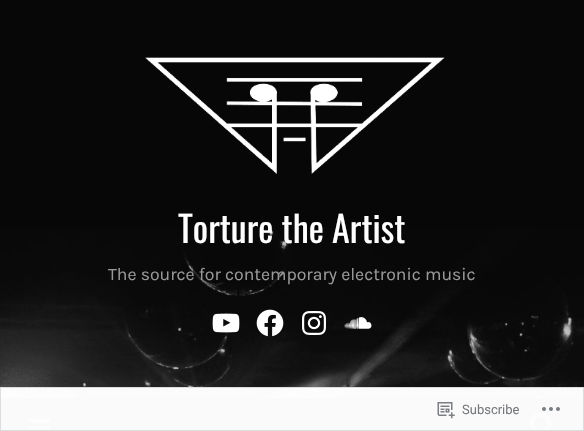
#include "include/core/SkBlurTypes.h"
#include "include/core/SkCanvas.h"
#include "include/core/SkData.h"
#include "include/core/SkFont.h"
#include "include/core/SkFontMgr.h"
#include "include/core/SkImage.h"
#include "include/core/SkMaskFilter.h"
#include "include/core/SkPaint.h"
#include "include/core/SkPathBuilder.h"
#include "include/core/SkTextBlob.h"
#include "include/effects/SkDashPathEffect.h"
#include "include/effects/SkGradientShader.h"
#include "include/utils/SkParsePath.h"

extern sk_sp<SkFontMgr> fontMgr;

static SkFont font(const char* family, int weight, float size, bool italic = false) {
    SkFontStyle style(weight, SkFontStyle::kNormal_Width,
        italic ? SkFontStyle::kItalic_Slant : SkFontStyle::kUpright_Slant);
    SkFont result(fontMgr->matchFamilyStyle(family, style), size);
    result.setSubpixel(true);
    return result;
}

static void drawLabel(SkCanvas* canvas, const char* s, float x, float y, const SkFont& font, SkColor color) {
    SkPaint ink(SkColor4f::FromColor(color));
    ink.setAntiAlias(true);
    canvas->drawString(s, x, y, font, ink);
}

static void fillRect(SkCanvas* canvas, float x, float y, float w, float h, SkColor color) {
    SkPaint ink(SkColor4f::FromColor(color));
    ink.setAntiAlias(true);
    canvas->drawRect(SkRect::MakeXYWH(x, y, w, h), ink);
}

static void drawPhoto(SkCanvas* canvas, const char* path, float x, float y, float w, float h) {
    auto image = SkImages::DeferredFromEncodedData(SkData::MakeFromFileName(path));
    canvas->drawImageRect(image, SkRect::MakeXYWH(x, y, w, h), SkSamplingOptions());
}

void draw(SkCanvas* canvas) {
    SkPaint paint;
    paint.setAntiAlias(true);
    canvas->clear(0xFF070707);
    drawPhoto(canvas, "assets/img1.png", 0, 228, 584, 170);
    drawPhoto(canvas, "assets/img2.png", 145, 57, 300, 117);
    SkFont font1 = font("Oswald", 400, 36);
    drawLabel(canvas, "Torture the Artist", 178, 243, font1, 0xFFFFFFFF);
    SkFont font2 = font("Karla", 400, 17.6f);
    drawLabel(canvas, "The source for contemporary electronic music", 108, 280, font2, 0xFF999999);
    drawPhoto(canvas, "assets/img3.png", 212, 313, 28, 20);
    drawPhoto(canvas, "assets/img4.png", 256, 309, 28, 28);
    drawPhoto(canvas, "assets/img5.png", 302, 311, 24, 24);
    drawPhoto(canvas, "assets/img6.png", 344, 317, 28, 12);
    fillRect(canvas, 0, 398, 584, 33, 0xFF000000);
    drawPhoto(canvas, "assets/img7.png", 29, 419, 22, 11);
    drawPhoto(canvas, "assets/img8.png", 530, 412, 22, 19);
    fillRect(canvas, 0, 387, 584, 44, 0xFAFFFFFF);
    paint.setStroke(true);
    paint.setStrokeWidth(1);
    paint.setColor(0xFADCDCDE);
    canvas->drawRect(SkRect::MakeXYWH(0.5f, 387.5f, 583, 43), paint);
    drawPhoto(canvas, "assets/img9.png", 437, 402, 18, 17);
    SkFont font3 = font("Roboto", 400, 13);
    drawLabel(canvas, "Subscribe", 462, 414, font3, 0xFF767A7F);
    drawPhoto(canvas, "assets/img10.png", 542, 407, 18, 4);
}
